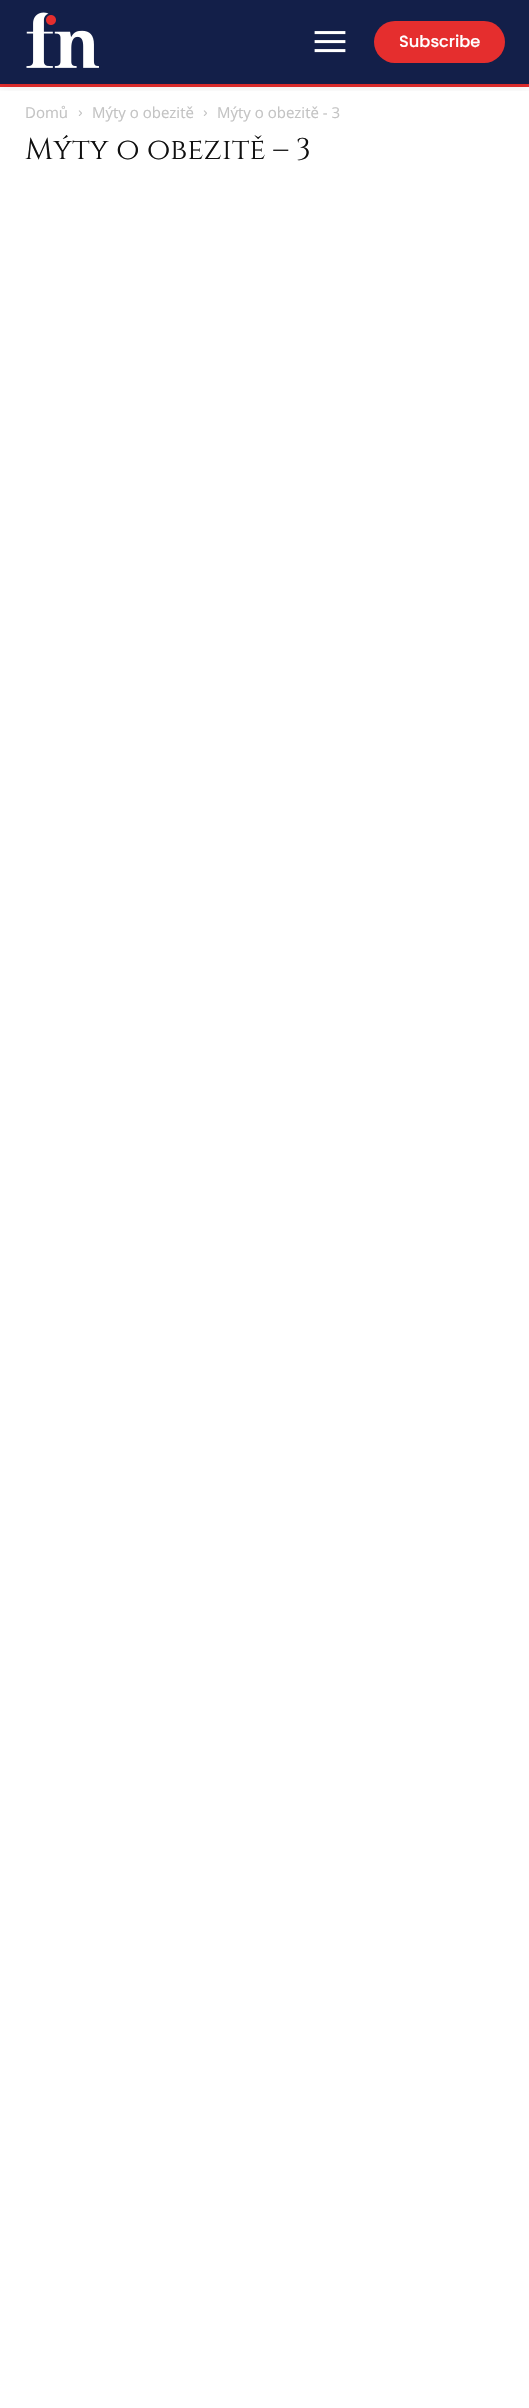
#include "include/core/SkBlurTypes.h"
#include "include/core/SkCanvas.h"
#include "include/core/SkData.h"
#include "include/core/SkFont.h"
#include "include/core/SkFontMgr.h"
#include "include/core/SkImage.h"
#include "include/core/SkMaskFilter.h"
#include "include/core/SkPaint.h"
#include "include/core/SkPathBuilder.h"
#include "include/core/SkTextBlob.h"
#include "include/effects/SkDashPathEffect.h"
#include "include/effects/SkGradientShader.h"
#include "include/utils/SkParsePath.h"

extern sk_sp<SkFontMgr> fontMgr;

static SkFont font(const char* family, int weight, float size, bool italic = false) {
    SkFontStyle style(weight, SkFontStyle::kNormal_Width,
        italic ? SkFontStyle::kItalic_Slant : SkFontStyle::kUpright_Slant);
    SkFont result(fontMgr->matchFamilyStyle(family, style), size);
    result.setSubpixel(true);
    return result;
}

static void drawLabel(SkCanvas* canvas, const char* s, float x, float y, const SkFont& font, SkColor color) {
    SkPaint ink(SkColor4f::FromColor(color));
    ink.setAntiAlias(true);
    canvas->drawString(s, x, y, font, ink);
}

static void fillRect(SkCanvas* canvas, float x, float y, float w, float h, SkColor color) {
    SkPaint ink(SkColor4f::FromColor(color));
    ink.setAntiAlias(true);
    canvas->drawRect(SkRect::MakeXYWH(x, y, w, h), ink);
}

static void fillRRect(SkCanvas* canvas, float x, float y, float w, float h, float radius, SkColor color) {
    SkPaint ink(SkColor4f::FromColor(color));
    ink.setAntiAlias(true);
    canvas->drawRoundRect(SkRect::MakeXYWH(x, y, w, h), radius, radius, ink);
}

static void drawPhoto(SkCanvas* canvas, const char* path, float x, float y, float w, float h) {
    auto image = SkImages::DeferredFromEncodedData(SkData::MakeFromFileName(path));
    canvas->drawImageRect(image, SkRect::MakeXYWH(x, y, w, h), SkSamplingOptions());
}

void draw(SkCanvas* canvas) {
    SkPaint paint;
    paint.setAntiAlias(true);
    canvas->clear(0xFFFFFFFF);
    fillRect(canvas, 0, 84, 529, 3, 0xFFE52E2E);
    fillRect(canvas, 0, 0, 529, 84, 0xFF131F49);
    drawPhoto(canvas, "assets/img1.png", 26, 12, 73, 56);
    drawPhoto(canvas, "assets/img2.png", 314, 31, 32, 22);
    fillRRect(canvas, 374, 21, 131, 42, 21, 0xFFE52E2E);
    canvas->save();
    canvas->clipRect(SkRect::MakeXYWH(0, 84, 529, 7));
    paint.setColor(0x17000000);
    paint.setMaskFilter(SkMaskFilter::MakeBlur(kNormal_SkBlurStyle, 6));
    canvas->drawRect(SkRect::MakeXYWH(0, 3, 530, 83), paint);
    paint.setMaskFilter(nullptr);
    canvas->restore();
    SkFont font1 = font("Poppins", 500, 16.25f);
    drawLabel(canvas, "Subscribe", 399, 47, font1, 0xFFFFFFFF);
    SkFont font2 = font("Open Sans", 400, 15);
    drawLabel(canvas, "Domů", 25, 118, font2, 0xFFC3C3C3);
    drawPhoto(canvas, "assets/img3.png", 78, 110, 4, 6);
    drawLabel(canvas, "Mýty o obezitě", 92, 118, font2, 0xFFC3C3C3);
    drawPhoto(canvas, "assets/img3.png", 203, 110, 4, 6);
    drawLabel(canvas, "Mýty o obezitě - 3", 217, 118, font2, 0xFFC3C3C3);
    SkFont font3 = font("Cinzel", 400, 30);
    drawLabel(canvas, "Mýty o obezitě – 3", 25, 159, font3, 0xFF111111);
}
